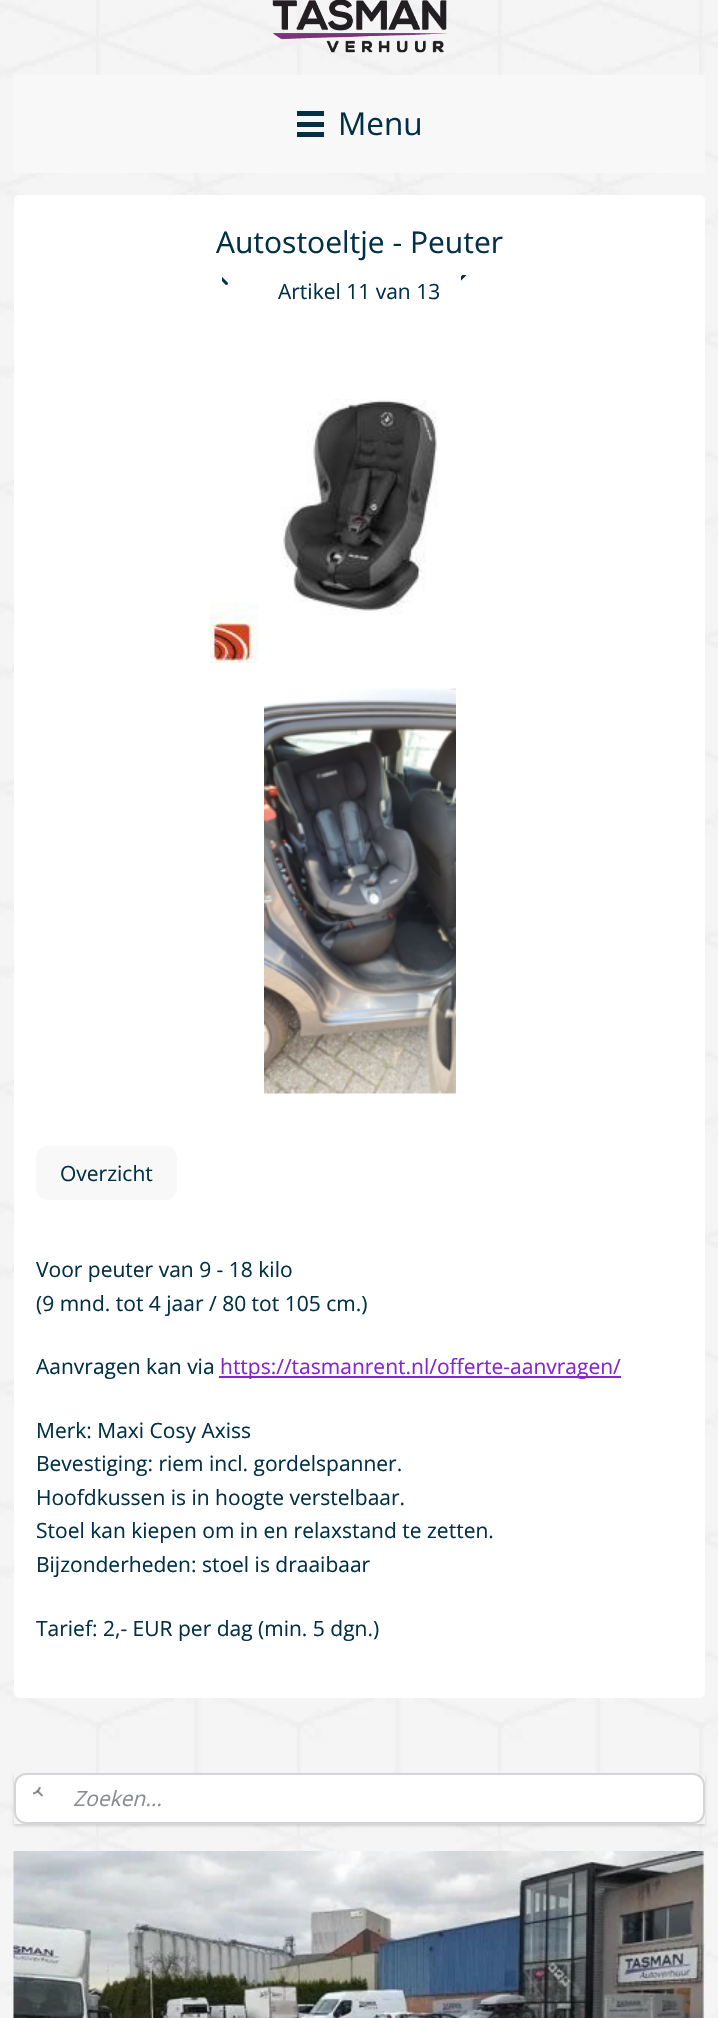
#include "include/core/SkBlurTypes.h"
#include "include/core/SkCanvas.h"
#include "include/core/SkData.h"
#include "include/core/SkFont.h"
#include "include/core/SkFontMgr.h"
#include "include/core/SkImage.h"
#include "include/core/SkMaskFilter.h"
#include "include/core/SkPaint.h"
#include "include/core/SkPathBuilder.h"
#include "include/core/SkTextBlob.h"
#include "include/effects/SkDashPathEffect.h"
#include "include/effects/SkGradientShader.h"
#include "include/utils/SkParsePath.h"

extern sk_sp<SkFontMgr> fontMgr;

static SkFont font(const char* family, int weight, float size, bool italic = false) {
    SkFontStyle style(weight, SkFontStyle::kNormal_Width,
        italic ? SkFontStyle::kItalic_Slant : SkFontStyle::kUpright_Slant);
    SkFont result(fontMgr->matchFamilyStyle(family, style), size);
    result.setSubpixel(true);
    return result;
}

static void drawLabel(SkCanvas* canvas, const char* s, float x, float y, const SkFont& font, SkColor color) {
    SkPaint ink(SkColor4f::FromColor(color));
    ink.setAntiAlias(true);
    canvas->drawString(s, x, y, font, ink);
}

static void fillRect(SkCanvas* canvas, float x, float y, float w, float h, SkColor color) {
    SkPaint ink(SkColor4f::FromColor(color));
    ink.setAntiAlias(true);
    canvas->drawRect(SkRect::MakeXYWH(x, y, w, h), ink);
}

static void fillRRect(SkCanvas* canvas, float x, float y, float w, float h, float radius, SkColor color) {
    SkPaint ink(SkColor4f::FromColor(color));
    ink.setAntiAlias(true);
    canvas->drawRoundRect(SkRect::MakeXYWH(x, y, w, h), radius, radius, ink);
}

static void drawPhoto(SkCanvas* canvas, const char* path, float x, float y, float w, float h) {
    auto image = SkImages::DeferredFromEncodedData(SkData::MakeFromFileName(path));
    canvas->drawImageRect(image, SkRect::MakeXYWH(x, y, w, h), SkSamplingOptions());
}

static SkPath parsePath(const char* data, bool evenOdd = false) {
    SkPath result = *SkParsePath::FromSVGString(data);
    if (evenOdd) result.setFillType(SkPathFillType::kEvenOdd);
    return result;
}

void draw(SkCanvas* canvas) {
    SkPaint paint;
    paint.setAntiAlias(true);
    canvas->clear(0xFFFFFFFF);
    drawPhoto(canvas, "assets/img1.png", 0, 0, 718, 2018);
    drawPhoto(canvas, "assets/img3.png", 273, 0, 173, 53);
    drawPhoto(canvas, "assets/img2.png", 272, 0, 175, 52);
    fillRect(canvas, 14, 75, 691, 98, 0xFFF8F8F8);
    fillRect(canvas, 297, 122, 27, 5, 0xFF023046);
    fillRect(canvas, 297, 111, 27, 5, 0xFF023046);
    fillRect(canvas, 297, 132, 27, 5, 0xFF023046);
    SkFont font1 = font("Open Sans", 400, 31.5f);
    drawLabel(canvas, "Menu", 338, 135, font1, 0xFF023046);
    fillRRect(canvas, 14, 195, 691, 1503, 5, 0xFFFFFFFF);
    SkFont font2 = font("Open Sans", 400, 30);
    drawLabel(canvas, "Autostoeltje - Peuter", 216, 253, font2, 0xFF023046);
    drawPhoto(canvas, "assets/img4.png", 222, 277, 6, 8);
    drawPhoto(canvas, "assets/img5.png", 461, 275, 6, 6);
    SkFont font3 = font("Open Sans", 400, 21);
    drawLabel(canvas, "Artikel 11 van 13", 278, 299, font3, 0xFF023046);
    drawPhoto(canvas, "assets/img6.png", 210, 399, 228, 264);
    drawPhoto(canvas, "assets/img7.png", 264, 688, 192, 406);
    fillRRect(canvas, 36, 1146, 141, 54, 12, 0xFFF8F8F8);
    drawLabel(canvas, "Overzicht", 60, 1181, font3, 0xFF023046);
    drawLabel(canvas, "Voor peuter van 9 - 18 kilo", 36, 1277, font3, 0xFF023046);
    drawLabel(canvas, "(9 mnd. tot 4 jaar / 80 tot 105 cm.)", 36, 1311, font3, 0xFF023046);
    drawLabel(canvas, "Aanvragen kan via", 36, 1374, font3, 0xFF023046);
    fillRect(canvas, 219, 1376, 402, 2, 0xFF8625D0);
    drawLabel(canvas, "https://tasmanrent.nl/offerte-aanvragen/", 220, 1374, font3, 0xFF8625D0);
    drawLabel(canvas, "Merk: Maxi Cosy Axiss", 36, 1438, font3, 0xFF023046);
    drawLabel(canvas, "Bevestiging: riem incl. gordelspanner.", 36, 1471, font3, 0xFF023046);
    drawLabel(canvas, "Hoofdkussen is in hoogte verstelbaar.", 36, 1505, font3, 0xFF023046);
    drawLabel(canvas, "Stoel kan kiepen om in en relaxstand te zetten.", 36, 1538, font3, 0xFF023046);
    drawLabel(canvas, "Bijzonderheden: stoel is draaibaar", 36, 1572, font3, 0xFF023046);
    drawLabel(canvas, "Tarief: 2,- EUR per dag (min. 5 dgn.)", 36, 1636, font3, 0xFF023046);
    canvas->save();
    canvas->clipPath(parsePath("M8 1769H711V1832H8ZM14 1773H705V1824H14Z", true), true);
    paint.setColor(0x26000000);
    paint.setMaskFilter(SkMaskFilter::MakeBlur(kNormal_SkBlurStyle, 1.5f));
    canvas->drawRect(SkRect::MakeXYWH(14, 1775, 691, 51), paint);
    paint.setMaskFilter(nullptr);
    canvas->restore();
    paint.setColor(0xFFFFFFFF);
    canvas->drawRoundRect(SkRect::MakeXYWH(15, 1774, 689, 49), 11, 11, paint);
    paint.setStroke(true);
    paint.setStrokeWidth(2);
    paint.setColor(0xFFD3D5D9);
    canvas->drawRoundRect(SkRect::MakeXYWH(15, 1774, 689, 49), 11, 11, paint);
    drawPhoto(canvas, "assets/img8.png", 33, 1787, 10, 10);
    SkFont font4 = font("Open Sans", 400, 21, true);
    drawLabel(canvas, "Zoeken...", 73, 1806, font4, 0xFF898C91);
    drawPhoto(canvas, "assets/img9.png", 13, 1851, 692, 167);
}
